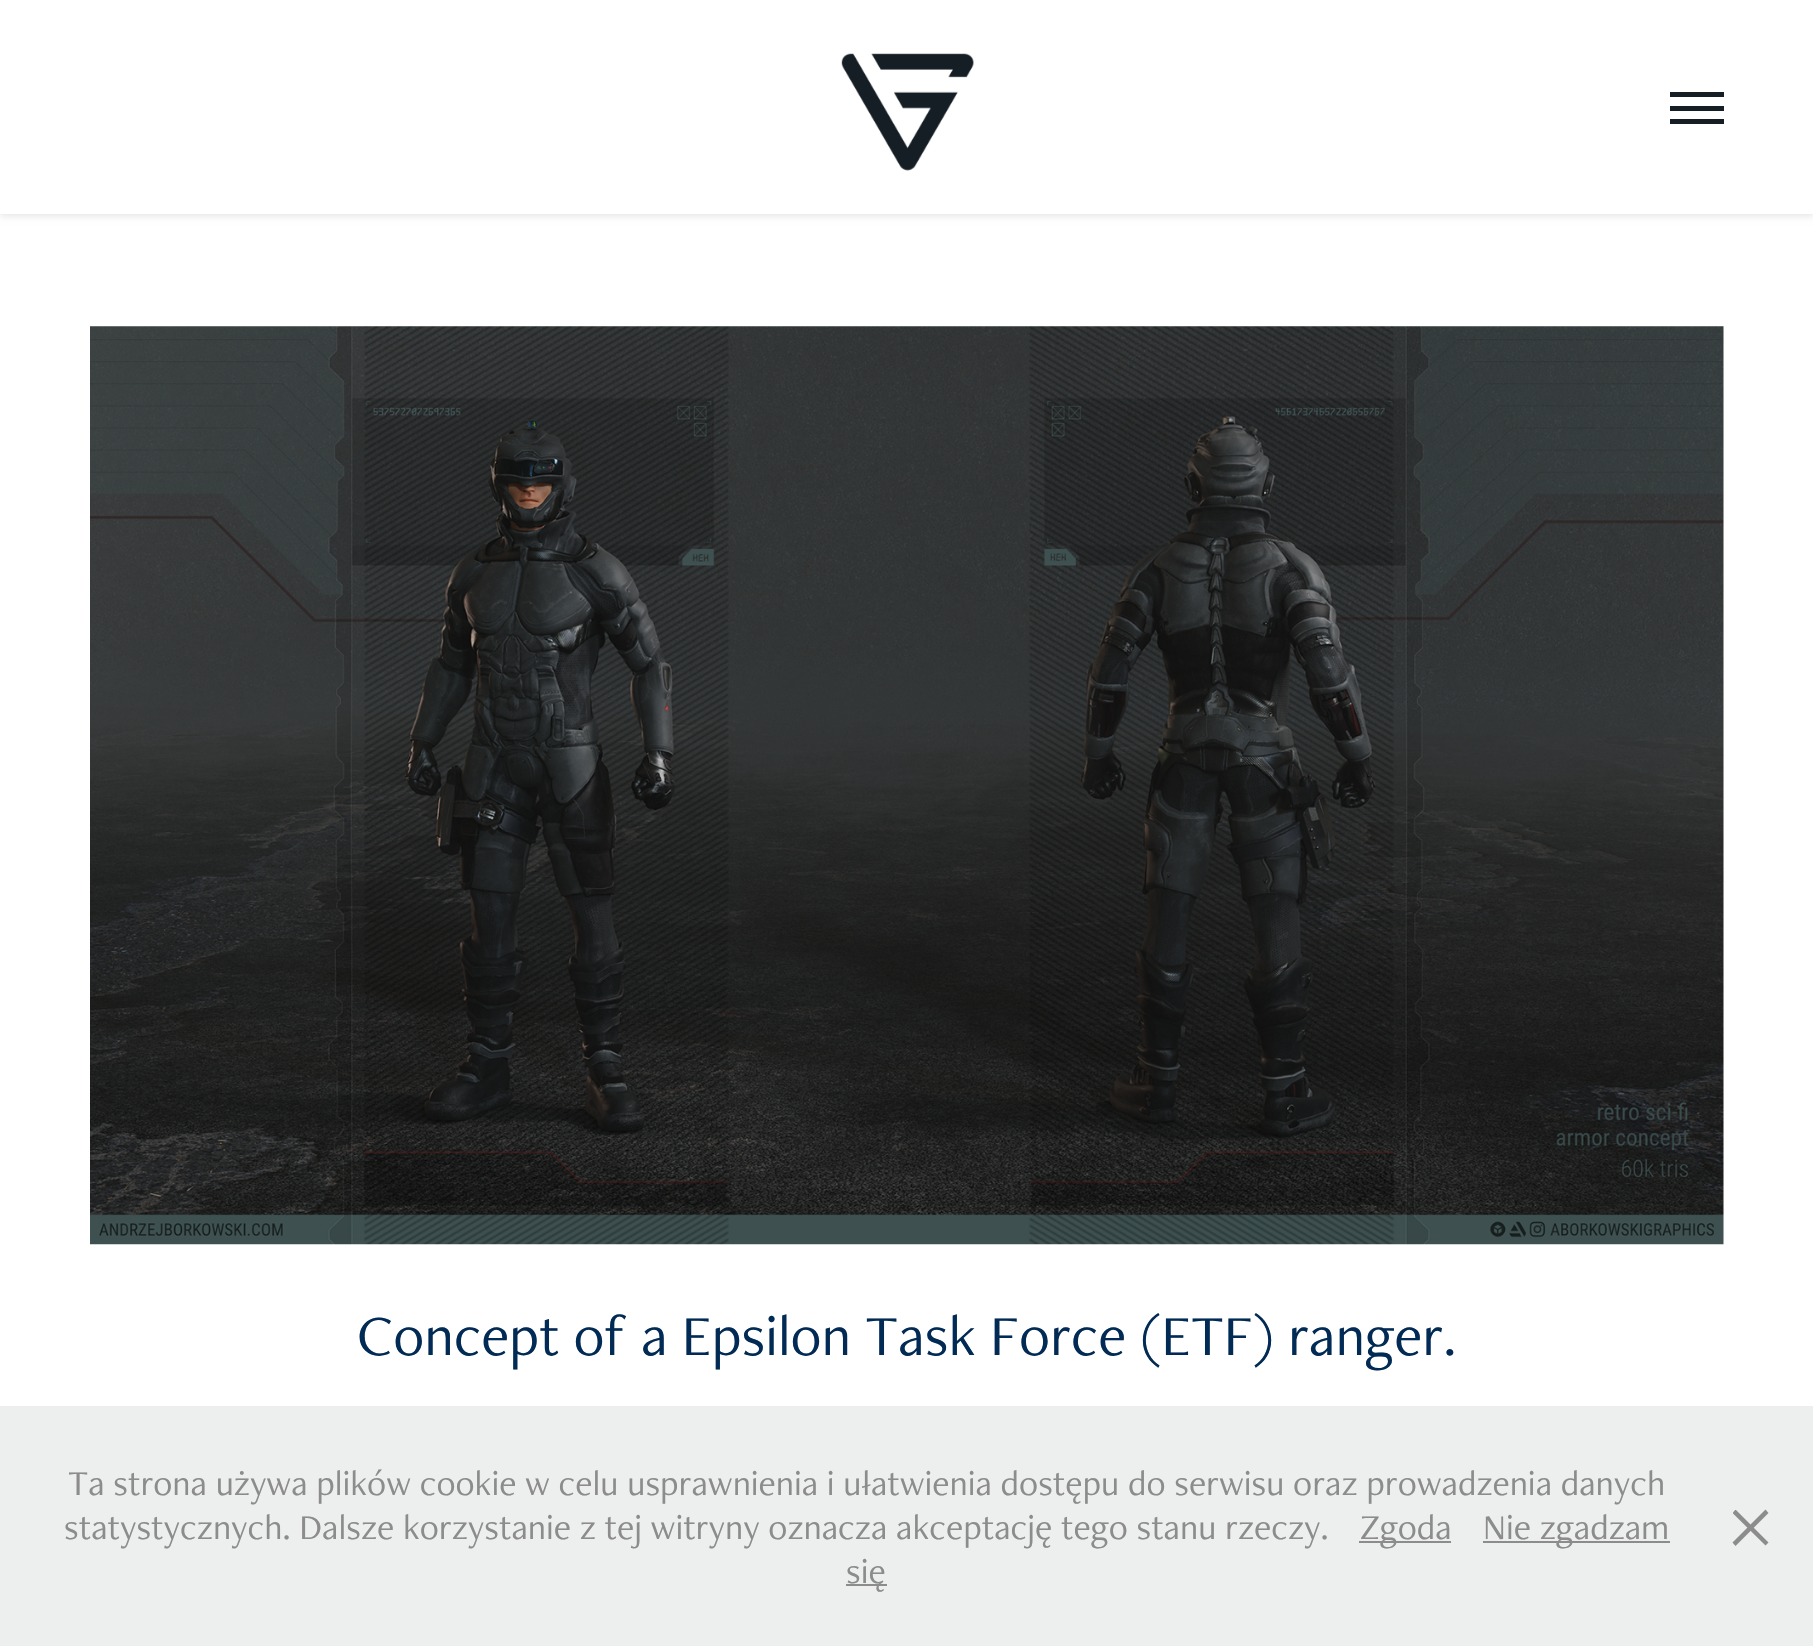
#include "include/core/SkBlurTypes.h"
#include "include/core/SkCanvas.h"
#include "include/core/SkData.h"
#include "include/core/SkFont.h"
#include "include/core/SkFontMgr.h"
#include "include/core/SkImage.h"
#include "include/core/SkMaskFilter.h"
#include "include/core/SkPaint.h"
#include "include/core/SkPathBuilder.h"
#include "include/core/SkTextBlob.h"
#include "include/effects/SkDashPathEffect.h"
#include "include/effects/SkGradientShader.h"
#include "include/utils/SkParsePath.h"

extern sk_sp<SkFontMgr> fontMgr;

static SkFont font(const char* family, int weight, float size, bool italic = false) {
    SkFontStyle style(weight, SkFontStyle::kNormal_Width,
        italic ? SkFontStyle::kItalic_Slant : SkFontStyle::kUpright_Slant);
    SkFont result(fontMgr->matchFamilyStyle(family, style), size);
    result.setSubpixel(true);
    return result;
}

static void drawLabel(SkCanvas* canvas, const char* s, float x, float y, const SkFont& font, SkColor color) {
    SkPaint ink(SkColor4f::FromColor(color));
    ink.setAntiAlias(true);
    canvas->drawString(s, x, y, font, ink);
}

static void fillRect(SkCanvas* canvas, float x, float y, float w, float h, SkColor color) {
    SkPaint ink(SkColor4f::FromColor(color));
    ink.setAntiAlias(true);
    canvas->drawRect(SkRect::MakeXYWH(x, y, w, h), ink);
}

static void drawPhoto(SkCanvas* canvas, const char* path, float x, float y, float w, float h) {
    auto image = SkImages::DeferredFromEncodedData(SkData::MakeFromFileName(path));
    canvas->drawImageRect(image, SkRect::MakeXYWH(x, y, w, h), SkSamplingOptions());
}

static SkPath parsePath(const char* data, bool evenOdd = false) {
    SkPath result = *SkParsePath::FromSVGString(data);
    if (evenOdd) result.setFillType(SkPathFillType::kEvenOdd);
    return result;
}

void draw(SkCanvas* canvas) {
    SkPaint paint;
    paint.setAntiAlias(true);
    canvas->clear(0xFFFFFFFF);
    paint.setColor(0x1A000000);
    paint.setMaskFilter(SkMaskFilter::MakeBlur(kNormal_SkBlurStyle, 3.5f));
    canvas->drawRect(SkRect::MakeXYWH(0, 2, 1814, 214), paint);
    paint.setMaskFilter(nullptr);
    fillRect(canvas, 0, 0, 1813, 214, 0xFFFFFFFF);
    drawPhoto(canvas, "assets/img1.png", 841, 53, 133, 118);
    fillRect(canvas, 1670, 92, 54, 5, 0xFF151D25);
    fillRect(canvas, 1670, 106, 54, 5, 0xFF151D25);
    fillRect(canvas, 1670, 119, 54, 5, 0xFF151D25);
    drawPhoto(canvas, "assets/img2.png", 90, 326, 1634, 919);
    SkFont font1 = font("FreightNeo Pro", 400, 58.5f);
    drawLabel(canvas, "Concept of a Epsilon Task Force (ETF) ranger.", 357, 1355, font1, 0xFF012B55);
    fillRect(canvas, 0, 1406, 1813, 240, 0xFFEDEEEE);
    SkFont font2 = font("FreightNeo Pro", 400, 36);
    drawLabel(canvas, "Ta strona używa plików cookie w celu usprawnienia i ułatwienia dostępu do serwisu oraz prowadzenia danych", 68, 1495, font2, 0xFF8C8C8C);
    drawLabel(canvas, "statystycznych. Dalsze korzystanie z tej witryny oznacza akceptację tego stanu rzeczy.", 64, 1539, font2, 0xFF8C8C8C);
    fillRect(canvas, 1359, 1541, 92, 2, 0xFF8C8C8C);
    drawLabel(canvas, "Zgoda", 1360, 1539, font2, 0xFF8C8C8C);
    fillRect(canvas, 1483, 1541, 187, 2, 0xFF8C8C8C);
    drawLabel(canvas, "Nie zgadzam", 1483, 1539, font2, 0xFF8C8C8C);
    fillRect(canvas, 846, 1584, 41, 2, 0xFF8C8C8C);
    drawLabel(canvas, "się", 846, 1583, font2, 0xFF8C8C8C);
    canvas->save();
    canvas->clipRect(SkRect::MakeXYWH(1733, 1510, 36, 36));
    paint.setColor(0xFF8C8C8C);
    canvas->drawPath(parsePath("M1732.5 1513L1735.5 1509.5L1768.5 1542.5L1765.5 1545.5Z"), paint);
    canvas->restore();
    canvas->drawPath(parsePath("M1735.5 1546L1732.5 1542.5L1765.5 1509.5L1768.5 1513Z"), paint);
}
